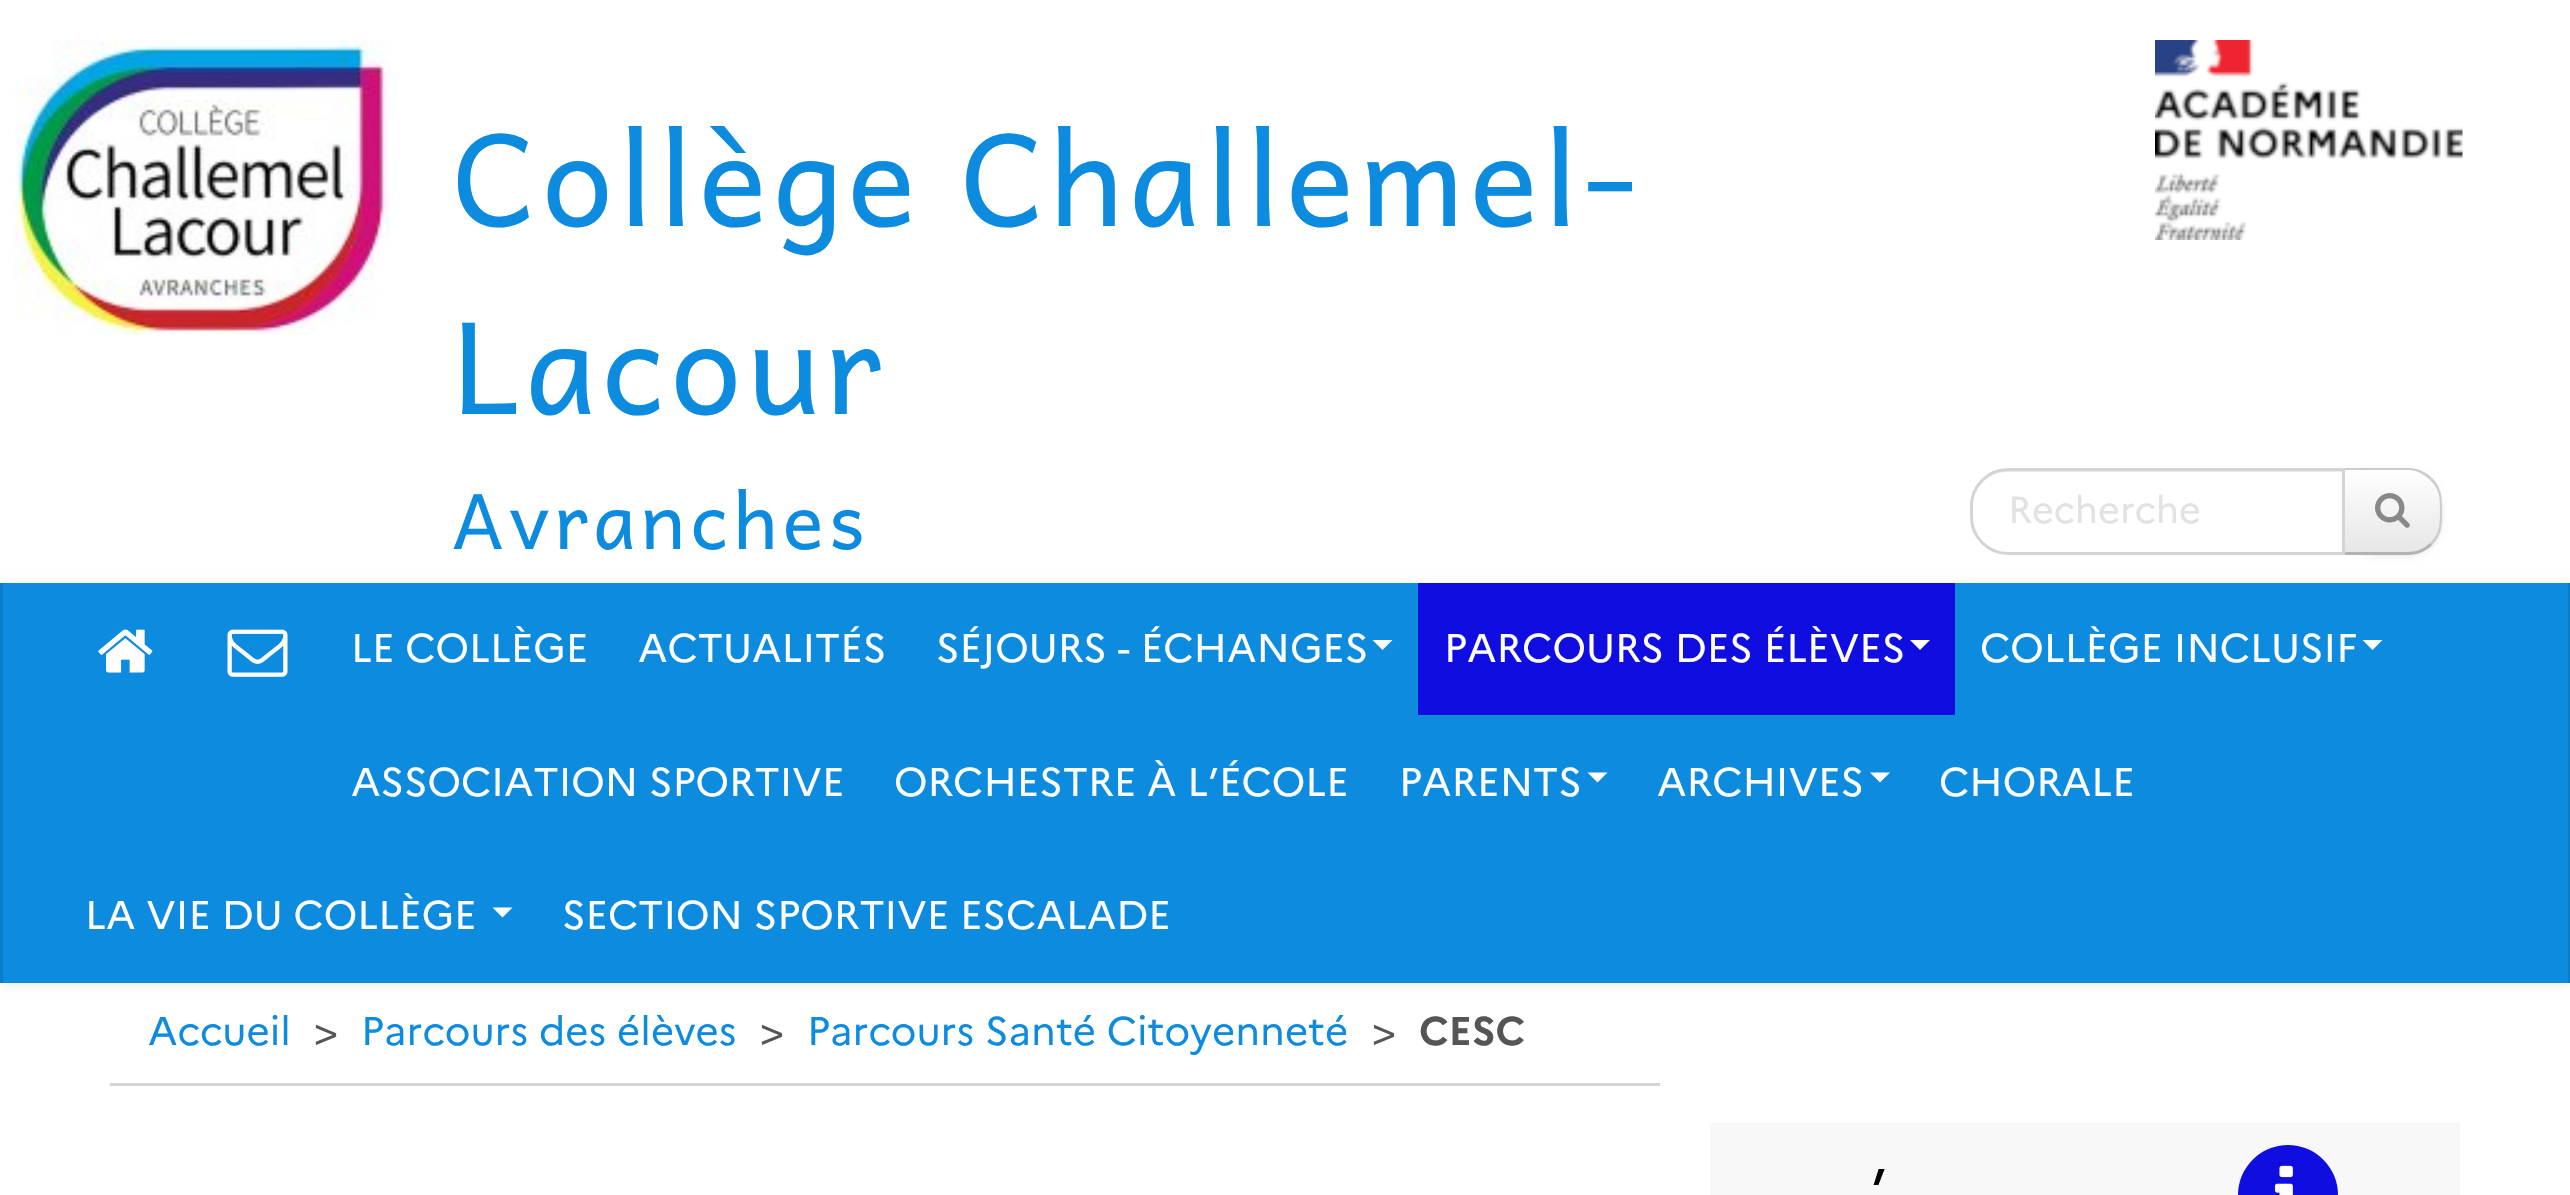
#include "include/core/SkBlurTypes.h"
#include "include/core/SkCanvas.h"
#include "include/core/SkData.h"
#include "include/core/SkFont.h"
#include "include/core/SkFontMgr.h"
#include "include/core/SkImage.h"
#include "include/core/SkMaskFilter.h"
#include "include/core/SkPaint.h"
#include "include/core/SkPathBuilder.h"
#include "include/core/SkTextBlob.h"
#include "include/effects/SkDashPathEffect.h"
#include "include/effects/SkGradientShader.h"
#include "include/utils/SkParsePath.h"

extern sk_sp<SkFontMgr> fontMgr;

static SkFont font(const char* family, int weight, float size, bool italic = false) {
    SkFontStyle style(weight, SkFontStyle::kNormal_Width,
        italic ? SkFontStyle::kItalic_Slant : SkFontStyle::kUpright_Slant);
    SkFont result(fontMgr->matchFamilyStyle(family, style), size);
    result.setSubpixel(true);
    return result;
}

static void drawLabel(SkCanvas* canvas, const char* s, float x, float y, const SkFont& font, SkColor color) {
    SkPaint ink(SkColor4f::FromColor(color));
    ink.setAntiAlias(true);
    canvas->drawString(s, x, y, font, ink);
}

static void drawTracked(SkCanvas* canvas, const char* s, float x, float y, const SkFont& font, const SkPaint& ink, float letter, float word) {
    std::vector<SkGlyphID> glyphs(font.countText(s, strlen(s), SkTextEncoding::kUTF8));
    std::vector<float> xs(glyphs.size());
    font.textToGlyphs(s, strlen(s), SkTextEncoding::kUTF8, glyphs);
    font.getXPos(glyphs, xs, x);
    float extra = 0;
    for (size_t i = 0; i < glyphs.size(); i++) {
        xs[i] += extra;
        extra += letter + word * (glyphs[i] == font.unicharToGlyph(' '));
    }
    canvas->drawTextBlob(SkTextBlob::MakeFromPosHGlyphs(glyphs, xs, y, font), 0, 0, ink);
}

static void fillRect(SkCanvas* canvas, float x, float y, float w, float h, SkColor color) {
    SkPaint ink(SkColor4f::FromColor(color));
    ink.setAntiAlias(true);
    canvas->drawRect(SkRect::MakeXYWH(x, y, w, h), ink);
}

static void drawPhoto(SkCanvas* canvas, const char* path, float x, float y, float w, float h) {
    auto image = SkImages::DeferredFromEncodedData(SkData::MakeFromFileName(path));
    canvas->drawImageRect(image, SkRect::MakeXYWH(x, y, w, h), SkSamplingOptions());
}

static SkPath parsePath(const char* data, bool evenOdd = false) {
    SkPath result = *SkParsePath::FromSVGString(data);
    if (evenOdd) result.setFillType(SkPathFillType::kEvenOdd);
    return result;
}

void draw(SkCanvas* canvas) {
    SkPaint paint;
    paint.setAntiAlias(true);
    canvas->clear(0xFFFFFFFF);
    drawPhoto(canvas, "assets/img1.png", 15, 40, 375, 295);
    SkFont font1 = font("Andika", 400, 128);
    paint.setColor(0xFF0D8BDF);
    drawTracked(canvas, "Collège Challemel-", 452, 226, font1, paint, 5, 0);
    drawTracked(canvas, "Lacour", 452, 414, font1, paint, 5, 0);
    SkFont font2 = font("Andika", 400, 76.75f);
    drawTracked(canvas, "Avranches", 452, 549, font2, paint, 5, 0);
    drawPhoto(canvas, "assets/img2.png", 2155, 40, 308, 200);
    paint.setColor(0x0D000000);
    paint.setMaskFilter(SkMaskFilter::MakeBlur(kNormal_SkBlurStyle, 2.5f));
    canvas->drawRoundRect(SkRect::MakeXYWH(2343, 470, 100, 88), 35, 35, paint);
    paint.setMaskFilter(nullptr);
    canvas->save();
    canvas->clipPath(parsePath("M2343 468H2408C2427.5 468 2443 483.5 2443 503V520C2443 539.5 2427.5 555 2408 555H2343Z"), true);
    {
        const SkColor colors[] = {0xFFFFFFFF, 0xFFE6E6E6};
        const float stops[] = {0, 1};
        const SkPoint ends[] = {{2393, 470}, {2393, 553}};
        paint.setShader(SkGradientShader::MakeLinear(ends, colors, stops, 2, SkTileMode::kClamp));
        paint.setAlpha(255);
    }
    canvas->drawRect(SkRect::MakeXYWH(2345, 470, 98, 83), paint);
    canvas->restore();
    paint.setShader(nullptr);
    paint.setColor(0xFFCCCCCC);
    canvas->drawPath(parsePath("M2345 470H2408C2416 470 2424 474 2430 480L2432 478C2426 472 2418 468 2408 468H2343Z"), paint);
    canvas->drawPath(parsePath("M2432 478C2442 488 2442 498 2442 511C2442 524 2442 535 2432 545L2430 543C2440 534 2440 523 2440 511C2440 499 2440 489 2430 480Z"), paint);
    paint.setColor(0xFFB3B3B3);
    canvas->drawPath(parsePath("M2342 555H2408C2418 555 2426 551 2432 545L2430 543C2424 549 2416 552 2408 552H2346Z"), paint);
    paint.setColor(0xFFCCCCCC);
    canvas->drawPath(parsePath("M2345 470L2342 468V555L2346 552H2345Z"), paint);
    paint.setColor(0xFFFFFFFF);
    canvas->drawPath(parsePath("M2008 468H2345V555H2008C1987 555 1970 538 1970 517V506C1970 485 1987 468 2008 468Z"), paint);
    paint.setColor(0xFFECECEC);
    canvas->drawPath(parsePath("M2008 472H2342V553H2343V470H2008C1992 470 1979 480 1975 494C1980 481 1993 472 2008 472Z"), paint);
    paint.setStroke(true);
    paint.setStrokeWidth(3);
    paint.setColor(0xFFD4D4D4);
    canvas->drawPath(parsePath("M2008 469.5H2343.5V553.5H2008C1988 553.5 1971.5 537 1971.5 517V506C1971.5 486 1988 469.5 2008 469.5Z"), paint);
    SkFont font3 = font("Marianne", 400, 37.5f);
    drawLabel(canvas, "Recherche", 2008, 523, font3, 0xFFE0E2E4);
    drawPhoto(canvas, "assets/img3.png", 2375, 493, 35, 35);
    paint.setStroke(false);
    paint.setColor(0x12000000);
    paint.setMaskFilter(SkMaskFilter::MakeBlur(kNormal_SkBlurStyle, 5));
    canvas->drawRect(SkRect::MakeXYWH(0, 585, 2570, 400), paint);
    paint.setMaskFilter(nullptr);
    fillRect(canvas, 3, 583, 2565, 400, 0xFF0D8BDF);
    fillRect(canvas, 2568, 583, 2, 400, 0xFF0C7CC7);
    fillRect(canvas, 0, 583, 3, 400, 0xFF0C7CC7);
    drawPhoto(canvas, "assets/img4.png", 98, 629, 55, 44);
    drawPhoto(canvas, "assets/img5.png", 227, 629, 61, 48);
    SkFont font4 = font("Marianne", 400, 40);
    drawLabel(canvas, "LE COLLÈGE", 351, 662, font4, 0xFFFFFFFF);
    drawLabel(canvas, "ACTUALITÉS", 638, 662, font4, 0xFFFFFFFF);
    drawLabel(canvas, "SÉJOURS - ÉCHANGES", 936, 662, font4, 0xFFFFFFFF);
    paint.setColor(0xFFFFFFFF);
    canvas->drawPath(parsePath("M1372.5 640H1392.5L1382.5 650Z"), paint);
    fillRect(canvas, 1418, 583, 537, 132, 0xFF0F0DDF);
    drawLabel(canvas, "PARCOURS DES ÉLÈVES", 1444, 662, font4, 0xFFFFFFFF);
    canvas->drawPath(parsePath("M1910 640H1930L1920 650Z"), paint);
    drawLabel(canvas, "COLLÈGE INCLUSIF", 1980, 662, font4, 0xFFFFFFFF);
    canvas->drawPath(parsePath("M2362.5 640H2382.5L2372.5 650Z"), paint);
    drawLabel(canvas, "ASSOCIATION SPORTIVE", 351, 796, font4, 0xFFFFFFFF);
    drawLabel(canvas, "ORCHESTRE À L’ÉCOLE", 894, 796, font4, 0xFFFFFFFF);
    drawLabel(canvas, "PARENTS", 1399, 796, font4, 0xFFFFFFFF);
    canvas->drawPath(parsePath("M1587.5 772.5H1607.5L1597.5 782.5Z"), paint);
    drawLabel(canvas, "ARCHIVES", 1657, 796, font4, 0xFFFFFFFF);
    canvas->drawPath(parsePath("M1870 772.5H1890L1880 782.5Z"), paint);
    drawLabel(canvas, "CHORALE", 1939, 796, font4, 0xFFFFFFFF);
    drawLabel(canvas, "LA VIE DU COLLÈGE", 85, 929, font4, 0xFFFFFFFF);
    canvas->drawPath(parsePath("M492.5 907.5H512.5L502.5 917.5Z"), paint);
    drawLabel(canvas, "SECTION SPORTIVE ESCALADE", 562, 929, font4, 0xFFFFFFFF);
    fillRect(canvas, 110, 1083, 1550, 3, 0xFFD4D4D4);
    drawLabel(canvas, "Accueil", 148, 1045, font4, 0xFF0D8BDF);
    drawLabel(canvas, ">", 314, 1045, font4, 0xFF555555);
    drawLabel(canvas, "Parcours des élèves", 361, 1045, font4, 0xFF0D8BDF);
    drawLabel(canvas, ">", 760, 1045, font4, 0xFF555555);
    drawLabel(canvas, "Parcours Santé Citoyenneté", 807, 1045, font4, 0xFF0D8BDF);
    drawLabel(canvas, ">", 1372, 1045, font4, 0xFF555555);
    SkFont font5 = font("Marianne", 700, 40);
    drawLabel(canvas, "CESC", 1419, 1045, font5, 0xFF555555);
    fillRect(canvas, 1710, 1123, 750, 72, 0xFFF8F8F8);
    SkFont font6 = font("Marianne", 400, 60);
    paint.setColor(0xFF000000);
    drawTracked(canvas, "’", 1871, 1211, font6, paint, 6, 0);
    paint.setColor(0xFF0F0DDF);
    canvas->drawCircle(2288, 1195, 50, paint);
    drawPhoto(canvas, "assets/img6.png", 2275, 1165, 18, 30);
}
